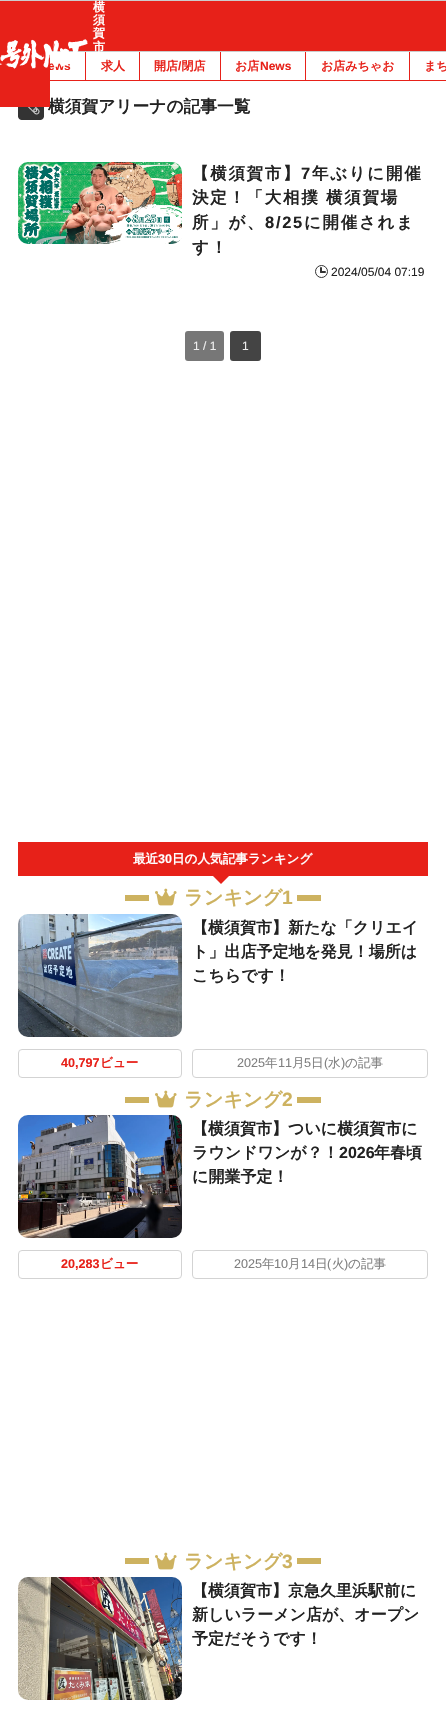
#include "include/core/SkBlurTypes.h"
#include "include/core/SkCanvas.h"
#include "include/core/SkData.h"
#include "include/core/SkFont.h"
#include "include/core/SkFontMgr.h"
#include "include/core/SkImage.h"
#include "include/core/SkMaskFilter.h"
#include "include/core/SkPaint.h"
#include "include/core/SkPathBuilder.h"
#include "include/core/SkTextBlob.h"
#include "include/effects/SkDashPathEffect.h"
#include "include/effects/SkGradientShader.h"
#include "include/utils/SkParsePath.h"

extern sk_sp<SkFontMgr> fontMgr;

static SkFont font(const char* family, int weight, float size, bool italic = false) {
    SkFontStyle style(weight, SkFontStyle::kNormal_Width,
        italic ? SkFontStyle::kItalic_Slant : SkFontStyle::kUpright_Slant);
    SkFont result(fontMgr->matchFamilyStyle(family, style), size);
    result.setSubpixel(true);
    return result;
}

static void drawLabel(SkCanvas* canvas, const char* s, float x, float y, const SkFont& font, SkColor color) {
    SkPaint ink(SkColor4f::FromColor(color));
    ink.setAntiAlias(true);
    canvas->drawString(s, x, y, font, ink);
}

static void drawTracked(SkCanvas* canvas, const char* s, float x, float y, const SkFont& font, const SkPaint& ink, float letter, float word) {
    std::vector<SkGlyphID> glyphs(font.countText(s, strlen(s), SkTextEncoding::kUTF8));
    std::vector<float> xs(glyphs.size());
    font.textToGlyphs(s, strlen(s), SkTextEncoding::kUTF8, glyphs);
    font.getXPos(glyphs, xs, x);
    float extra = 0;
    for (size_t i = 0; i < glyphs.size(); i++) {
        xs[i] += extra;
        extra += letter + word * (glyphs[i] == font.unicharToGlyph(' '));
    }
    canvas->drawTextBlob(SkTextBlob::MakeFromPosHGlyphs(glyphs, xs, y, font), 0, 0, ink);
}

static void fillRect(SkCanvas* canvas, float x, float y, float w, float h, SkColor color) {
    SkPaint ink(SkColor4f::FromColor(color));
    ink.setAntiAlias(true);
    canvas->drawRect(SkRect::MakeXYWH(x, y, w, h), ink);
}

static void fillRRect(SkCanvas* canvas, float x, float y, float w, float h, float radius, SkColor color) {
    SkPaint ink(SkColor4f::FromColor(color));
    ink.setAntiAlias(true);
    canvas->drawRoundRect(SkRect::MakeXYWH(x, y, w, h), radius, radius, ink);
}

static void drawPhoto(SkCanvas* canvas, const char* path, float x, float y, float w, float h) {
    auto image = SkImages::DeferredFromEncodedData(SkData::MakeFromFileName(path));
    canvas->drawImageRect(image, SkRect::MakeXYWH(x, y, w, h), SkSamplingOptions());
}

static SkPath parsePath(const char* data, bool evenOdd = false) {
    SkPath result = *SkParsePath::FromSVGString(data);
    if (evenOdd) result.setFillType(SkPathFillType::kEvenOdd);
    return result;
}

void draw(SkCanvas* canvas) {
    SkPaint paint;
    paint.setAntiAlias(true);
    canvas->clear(0xFFFFFFFF);
    fillRect(canvas, 50, 1, 396, 50, 0xFFE72119);
    fillRect(canvas, 0, 0, 446, 1, 0xFFCCCCCC);
    fillRect(canvas, 51, 51, 395, 1, 0xFFCCCCCC);
    SkFont font1 = font("WenQuanYi Zen Hei", 700, 16.75f);
    drawLabel(canvas, "横須賀アリーナの記事一覧", 48, 112, font1, 0xFF222222);
    fillRect(canvas, 0, 1, 50, 106, 0xFFE72119);
    fillRect(canvas, 85, 52, 1, 28, 0xFFE72119);
    SkFont font2 = font("Liberation Sans", 700, 12);
    drawLabel(canvas, "ews", 48, 70, font2, 0xFFE72119);
    drawPhoto(canvas, "assets/img1.png", 0, 39, 88, 30);
    SkFont font3 = font("WenQuanYi Zen Hei", 700, 12);
    drawLabel(canvas, "横", 93, 11, font3, 0xFFFFFFFF);
    drawLabel(canvas, "須", 93, 24, font3, 0xFFFFFFFF);
    drawLabel(canvas, "賀", 93, 37, font3, 0xFFFFFFFF);
    drawLabel(canvas, "市", 93, 51, font3, 0xFFFFFFFF);
    fillRect(canvas, 50, 80, 396, 1, 0xFFE72119);
    fillRect(canvas, 139, 52, 1, 28, 0xFFE72119);
    drawLabel(canvas, "求人", 101, 70, font3, 0xFFE72119);
    fillRect(canvas, 220, 52, 1, 28, 0xFFE72119);
    drawLabel(canvas, "開店 閉店", 154, 70, font3, 0xFFE72119);
    drawLabel(canvas, "/", 178, 70, font2, 0xFFE72119);
    fillRect(canvas, 305, 52, 1, 28, 0xFFE72119);
    drawLabel(canvas, "お店", 235, 70, font3, 0xFFE72119);
    drawLabel(canvas, "News", 260, 70, font2, 0xFFE72119);
    fillRect(canvas, 409, 52, 1, 28, 0xFFE72119);
    drawLabel(canvas, "お店みちゃお", 321, 70, font3, 0xFFE72119);
    drawLabel(canvas, "まち", 424, 70, font3, 0xFFE72119);
    drawPhoto(canvas, "assets/img2.png", 18, 107, 26, 13);
    drawPhoto(canvas, "assets/img3.png", 18, 162, 164, 82);
    SkFont font4 = font("WenQuanYi Zen Hei", 700, 16.5f);
    paint.setColor(0xFF222222);
    drawTracked(canvas, "【横須賀市】", 192, 179, font4, paint, 1.7f, 0);
    SkFont font5 = font("Liberation Sans", 700, 16.5f);
    drawTracked(canvas, "7", 301, 179, font5, paint, 1.7f, 0);
    drawTracked(canvas, "年ぶりに開催", 312, 179, font4, paint, 1.7f, 0);
    drawTracked(canvas, "決定！「大相撲 横須賀場", 192, 203, font4, paint, 1.7f, 0);
    drawTracked(canvas, "所」が、", 192, 228, font4, paint, 1.7f, 0);
    drawTracked(canvas, "8/25", 265, 228, font5, paint, 1.7f, 0);
    drawTracked(canvas, "に開催されま", 304, 228, font4, paint, 1.7f, 0);
    drawTracked(canvas, "す！", 192, 253, font4, paint, 1.7f, 0);
    paint.setStroke(true);
    paint.setStrokeWidth(1);
    paint.setColor(0xFF333333);
    canvas->drawCircle(321.5f, 271.5f, 6, paint);
    fillRRect(canvas, 320, 267, 2, 6, 1, 0xFF333333);
    fillRRect(canvas, 320, 271, 6, 2, 1, 0xFF333333);
    SkFont font6 = font("Liberation Sans", 400, 12);
    drawLabel(canvas, "2024/05/04 07:19", 331, 276, font6, 0xFF222222);
    fillRRect(canvas, 185, 331, 39, 30, 3, 0xFF777777);
    drawLabel(canvas, "1 / 1", 193, 350, font6, 0xFFEEEEEE);
    fillRRect(canvas, 230, 331, 31, 30, 3, 0xFF444444);
    drawLabel(canvas, "1", 242, 350, font6, 0xFFEEEEEE);
    fillRect(canvas, 18, 842, 410, 34, 0xFFE72119);
    SkFont font7 = font("WenQuanYi Zen Hei", 700, 12.6f);
    drawLabel(canvas, "最近", 133, 863, font7, 0xFFFFFFFF);
    SkFont font8 = font("Liberation Sans", 700, 12.6f);
    drawLabel(canvas, "30", 158, 863, font8, 0xFFFFFFFF);
    drawLabel(canvas, "日の人気記事ランキング", 172, 863, font7, 0xFFFFFFFF);
    paint.setStroke(false);
    paint.setColor(0xFFE72119);
    canvas->drawPath(parsePath("M211 874H231L221 884Z"), paint);
    fillRect(canvas, 125, 895, 24, 6, 0xFFCDB260);
    drawPhoto(canvas, "assets/img4.png", 155, 888, 22, 18);
    SkFont font9 = font("WenQuanYi Zen Hei", 700, 19.25f);
    drawLabel(canvas, "ランキング", 184, 904, font9, 0xFFCDB260);
    SkFont font10 = font("Liberation Sans", 700, 19.25f);
    drawLabel(canvas, "1", 282, 904, font10, 0xFFCDB260);
    fillRect(canvas, 297, 895, 24, 6, 0xFFCDB260);
    drawPhoto(canvas, "assets/img5.png", 18, 914, 164, 123);
    SkFont font11 = font("WenQuanYi Zen Hei", 700, 16);
    drawLabel(canvas, "【横須賀市】新たな「クリエイ", 192, 933, font11, 0xFF222222);
    drawLabel(canvas, "ト」出店予定地を発見！場所は", 192, 957, font11, 0xFF222222);
    drawLabel(canvas, "こちらです！", 192, 981, font11, 0xFF222222);
    paint.setStroke(true);
    paint.setColor(0xFFD3D3D3);
    canvas->drawRoundRect(SkRect::MakeXYWH(18.5f, 1049.5f, 163, 28), 3.5f, 3.5f, paint);
    drawLabel(canvas, "40,797", 61, 1067, font8, 0xFFE72119);
    drawLabel(canvas, "ビュー", 100, 1067, font7, 0xFFE72119);
    canvas->drawRoundRect(SkRect::MakeXYWH(192.5f, 1049.5f, 235, 28), 3.5f, 3.5f, paint);
    SkFont font12 = font("Liberation Sans", 400, 12.6f);
    drawLabel(canvas, "2025", 237, 1067, font12, 0xFF808080);
    SkFont font13 = font("WenQuanYi Zen Hei", 500, 12.6f);
    drawLabel(canvas, "年", 265, 1067, font13, 0xFF808080);
    drawLabel(canvas, "11", 278, 1067, font12, 0xFF808080);
    drawLabel(canvas, "月", 292, 1067, font13, 0xFF808080);
    drawLabel(canvas, "5", 304, 1067, font12, 0xFF808080);
    drawLabel(canvas, "日", 311, 1067, font13, 0xFF808080);
    drawLabel(canvas, "(", 324, 1067, font12, 0xFF808080);
    drawLabel(canvas, "水", 328, 1067, font13, 0xFF808080);
    drawLabel(canvas, ")", 341, 1067, font12, 0xFF808080);
    drawLabel(canvas, "の記事", 345, 1067, font13, 0xFF808080);
    fillRect(canvas, 125, 1097, 24, 6, 0xFFCDB260);
    drawPhoto(canvas, "assets/img4.png", 155, 1090, 22, 18);
    drawLabel(canvas, "ランキング", 184, 1106, font9, 0xFFCDB260);
    drawLabel(canvas, "2", 282, 1106, font10, 0xFFCDB260);
    fillRect(canvas, 297, 1097, 24, 6, 0xFFCDB260);
    drawPhoto(canvas, "assets/img6.png", 18, 1115, 164, 123);
    drawLabel(canvas, "【横須賀市】ついに横須賀市に", 192, 1134, font11, 0xFF222222);
    drawLabel(canvas, "ラウンドワンが？！", 192, 1158, font11, 0xFF222222);
    SkFont font14 = font("Liberation Sans", 700, 16);
    drawLabel(canvas, "2026", 339, 1158, font14, 0xFF222222);
    drawLabel(canvas, "年春頃", 374, 1158, font11, 0xFF222222);
    drawLabel(canvas, "に開業予定！", 192, 1182, font11, 0xFF222222);
    canvas->drawRoundRect(SkRect::MakeXYWH(18.5f, 1250.5f, 163, 28), 3.5f, 3.5f, paint);
    drawLabel(canvas, "20,283", 61, 1268, font8, 0xFFE72119);
    drawLabel(canvas, "ビュー", 100, 1268, font7, 0xFFE72119);
    canvas->drawRoundRect(SkRect::MakeXYWH(192.5f, 1250.5f, 235, 28), 3.5f, 3.5f, paint);
    drawLabel(canvas, "2025", 234, 1268, font12, 0xFF808080);
    drawLabel(canvas, "年", 262, 1268, font13, 0xFF808080);
    drawLabel(canvas, "10", 274, 1268, font12, 0xFF808080);
    drawLabel(canvas, "月", 288, 1268, font13, 0xFF808080);
    drawLabel(canvas, "14", 301, 1268, font12, 0xFF808080);
    drawLabel(canvas, "日", 315, 1268, font13, 0xFF808080);
    drawLabel(canvas, "(", 327, 1268, font12, 0xFF808080);
    drawLabel(canvas, "火", 332, 1268, font13, 0xFF808080);
    drawLabel(canvas, ")", 344, 1268, font12, 0xFF808080);
    drawLabel(canvas, "の記事", 348, 1268, font13, 0xFF808080);
    fillRect(canvas, 125, 1558, 24, 6, 0xFFCDB260);
    drawPhoto(canvas, "assets/img4.png", 155, 1552, 22, 18);
    drawLabel(canvas, "ランキング", 184, 1568, font9, 0xFFCDB260);
    drawLabel(canvas, "3", 282, 1568, font10, 0xFFCDB260);
    fillRect(canvas, 297, 1558, 24, 6, 0xFFCDB260);
    drawPhoto(canvas, "assets/img7.png", 18, 1577, 164, 123);
    drawLabel(canvas, "【横須賀市】京急久里浜駅前に", 192, 1596, font11, 0xFF222222);
    drawLabel(canvas, "新しいラーメン店が、オープン", 192, 1620, font11, 0xFF222222);
    drawLabel(canvas, "予定だそうです！", 192, 1644, font11, 0xFF222222);
}
